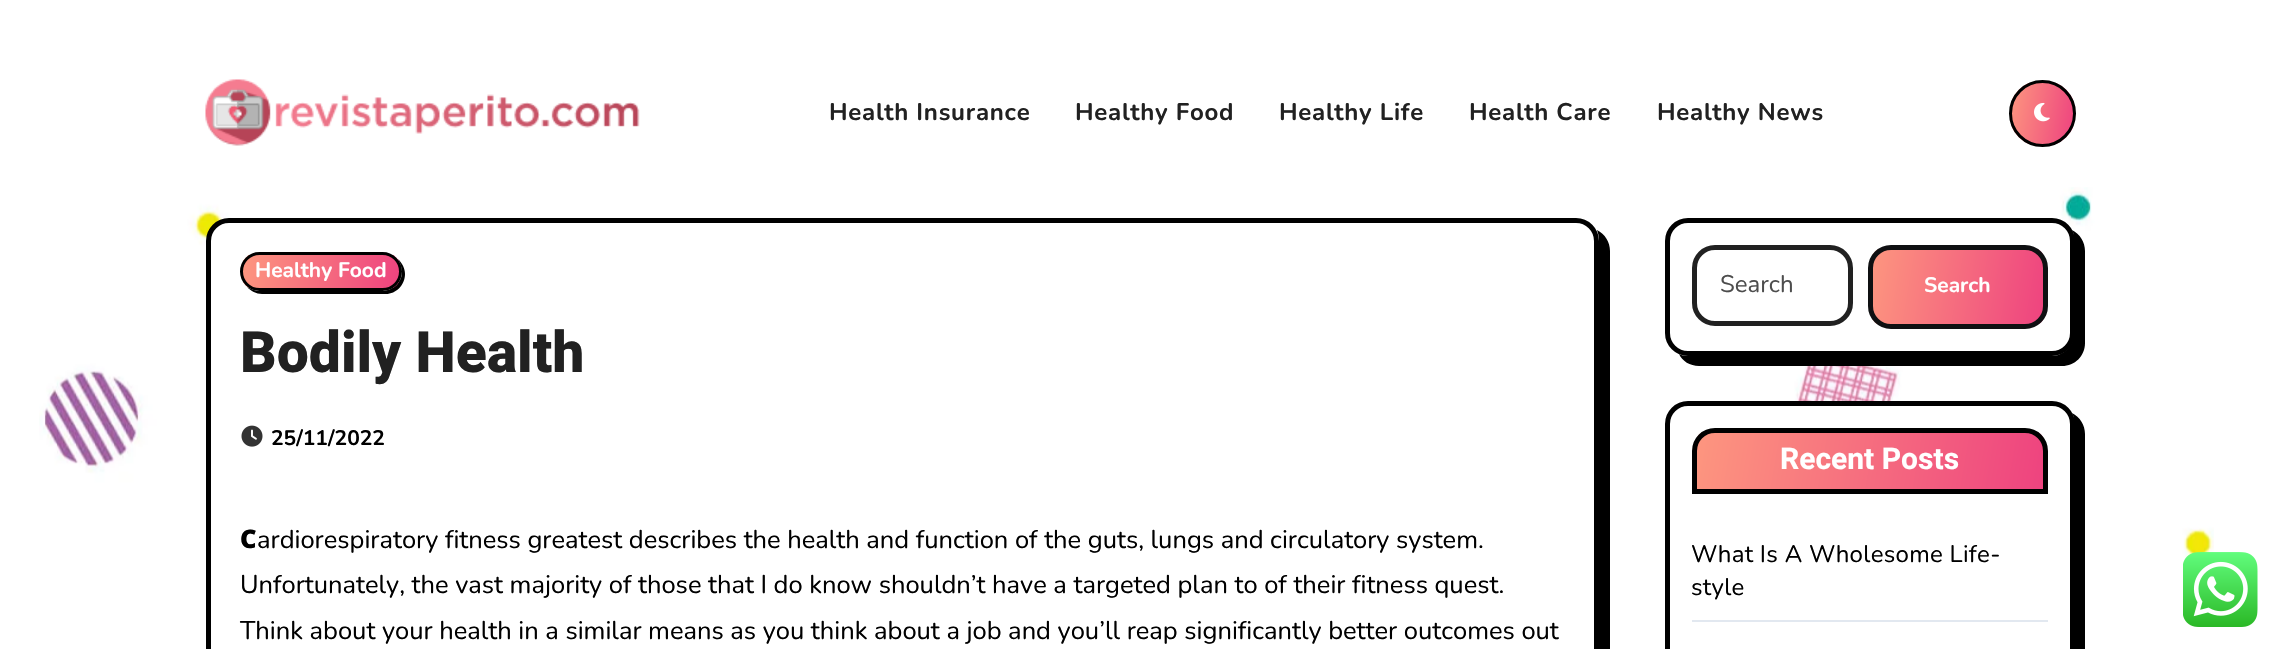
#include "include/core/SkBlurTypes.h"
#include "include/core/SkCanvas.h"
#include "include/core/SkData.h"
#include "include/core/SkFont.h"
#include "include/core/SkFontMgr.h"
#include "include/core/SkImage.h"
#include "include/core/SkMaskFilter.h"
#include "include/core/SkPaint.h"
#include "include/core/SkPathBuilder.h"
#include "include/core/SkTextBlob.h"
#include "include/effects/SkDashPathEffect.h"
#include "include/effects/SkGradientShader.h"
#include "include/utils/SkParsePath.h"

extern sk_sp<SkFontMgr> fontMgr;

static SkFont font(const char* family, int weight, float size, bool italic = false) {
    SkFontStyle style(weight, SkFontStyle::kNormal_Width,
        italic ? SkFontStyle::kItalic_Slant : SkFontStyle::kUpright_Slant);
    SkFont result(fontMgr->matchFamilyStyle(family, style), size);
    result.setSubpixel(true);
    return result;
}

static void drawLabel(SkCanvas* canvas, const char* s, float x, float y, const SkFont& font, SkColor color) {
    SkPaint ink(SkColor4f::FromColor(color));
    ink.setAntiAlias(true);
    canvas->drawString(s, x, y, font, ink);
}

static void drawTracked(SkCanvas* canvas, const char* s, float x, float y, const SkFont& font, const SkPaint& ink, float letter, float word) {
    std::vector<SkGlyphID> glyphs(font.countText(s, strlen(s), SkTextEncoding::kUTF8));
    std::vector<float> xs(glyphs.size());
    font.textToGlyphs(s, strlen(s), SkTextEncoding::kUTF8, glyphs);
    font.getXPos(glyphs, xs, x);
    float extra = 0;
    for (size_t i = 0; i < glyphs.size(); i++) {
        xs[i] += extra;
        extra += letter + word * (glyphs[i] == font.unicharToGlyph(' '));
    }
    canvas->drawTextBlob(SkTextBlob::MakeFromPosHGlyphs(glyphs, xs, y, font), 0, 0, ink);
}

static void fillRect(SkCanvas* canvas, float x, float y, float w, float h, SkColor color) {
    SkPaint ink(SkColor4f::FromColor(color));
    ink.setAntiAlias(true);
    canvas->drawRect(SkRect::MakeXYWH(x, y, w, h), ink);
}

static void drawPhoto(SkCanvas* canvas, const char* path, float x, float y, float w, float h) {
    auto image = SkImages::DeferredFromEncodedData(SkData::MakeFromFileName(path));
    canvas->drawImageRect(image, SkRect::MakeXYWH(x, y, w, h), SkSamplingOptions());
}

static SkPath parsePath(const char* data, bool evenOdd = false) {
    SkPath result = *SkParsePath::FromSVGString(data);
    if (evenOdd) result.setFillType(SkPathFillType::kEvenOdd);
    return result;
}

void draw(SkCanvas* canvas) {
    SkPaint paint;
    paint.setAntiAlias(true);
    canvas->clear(0xFFFFFFFF);
    drawPhoto(canvas, "assets/img1.png", 39, 187, 2175, 371);
    drawPhoto(canvas, "assets/img2.png", 205, 79, 435, 67);
    SkFont font1 = font("Nunito", 700, 24);
    paint.setColor(0xFF212121);
    drawTracked(canvas, "Health Insurance", 829, 120, font1, paint, 0.75f, 0);
    drawTracked(canvas, "Healthy Food", 1075, 120, font1, paint, 0.75f, 0);
    drawTracked(canvas, "Healthy Life", 1279, 120, font1, paint, 0.75f, 0);
    drawTracked(canvas, "Health Care", 1469, 120, font1, paint, 0.75f, 0);
    drawTracked(canvas, "Healthy News", 1657, 120, font1, paint, 0.75f, 0);
    canvas->save();
    canvas->clipPath(parsePath("M2042.5 80C2061 80 2076 95 2076 113.5C2076 132 2061 147 2042.5 147C2024 147 2009 132 2009 113.5C2009 95 2024 80 2042.5 80Z"), true);
    {
        const SkColor colors[] = {0xFFFD967F, 0xFFEE437F};
        const float stops[] = {0, 1};
        const SkPoint ends[] = {{2007, 107}, {2077, 119}};
        paint.setShader(SkGradientShader::MakeLinear(ends, colors, stops, 2, SkTileMode::kClamp));
        paint.setAlpha(255);
    }
    canvas->drawRect(SkRect::MakeXYWH(2012, 83, 61, 61), paint);
    canvas->restore();
    paint.setStroke(true);
    paint.setStrokeWidth(3);
    paint.setShader(nullptr);
    paint.setColor(0xFF000000);
    canvas->drawCircle(2042.5f, 113.5f, 32, paint);
    drawPhoto(canvas, "assets/img3.png", 2034, 102, 16, 20);
    paint.setStroke(false);
    canvas->drawPath(parsePath("M218 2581C222 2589 230 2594 239 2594H1587C1600 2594 1610 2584 1610 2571V251C1610 242 1605 234 1597 230C1598 233 1599 236 1599 240V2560C1599 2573 1589 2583 1576 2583H228C224 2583 221 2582 218 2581Z"), paint);
    paint.setColor(0xFFFFFFFF);
    canvas->drawRoundRect(SkRect::MakeXYWH(208.5f, 220.5f, 1388, 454), 20.5f, 20.5f, paint);
    paint.setStroke(true);
    paint.setStrokeWidth(5);
    paint.setColor(0xFF000000);
    canvas->drawRoundRect(SkRect::MakeXYWH(208.5f, 220.5f, 1388, 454), 20.5f, 20.5f, paint);
    paint.setStroke(false);
    canvas->drawPath(parsePath("M247 287C251 291 256 294 262 294H386C396 294 405 285 405 274C405 268 402 263 398 259C400 263 402 267 402 272C402 282 393 291 382 291H260C255 291 251 289 247 287Z"), paint);
    canvas->save();
    canvas->clipPath(parsePath("M259.5 252H382.5C393.5 252 402 260.5 402 271.5C402 282.5 393.5 291 382.5 291H259.5C248.5 291 240 282.5 240 271.5C240 260.5 248.5 252 259.5 252Z"), true);
    {
        const SkColor colors[] = {0xFFFD967F, 0xFFEE437F};
        const float stops[] = {0, 1};
        const SkPoint ends[] = {{243, 258}, {399, 285}};
        paint.setShader(SkGradientShader::MakeLinear(ends, colors, stops, 2, SkTileMode::kClamp));
        paint.setAlpha(255);
    }
    canvas->drawRect(SkRect::MakeXYWH(243, 255, 156, 33), paint);
    canvas->restore();
    paint.setStroke(true);
    paint.setStrokeWidth(3);
    paint.setShader(nullptr);
    paint.setColor(0xFF000000);
    canvas->drawRoundRect(SkRect::MakeXYWH(241.5f, 253.5f, 159, 36), 18, 18, paint);
    SkFont font2 = font("Nunito", 700, 21);
    drawLabel(canvas, "Healthy Food", 255, 277, font2, 0xFFFFFFFF);
    SkFont font3 = font("Heebo", 800, 57);
    drawLabel(canvas, "Bodily Health", 240, 372, font3, 0xFF212121);
    drawPhoto(canvas, "assets/img4.png", 241, 425, 22, 22);
    drawLabel(canvas, "25/11/2022", 271, 445, font2, 0xFF000000);
    SkFont font4 = font("Noto Sans", 900, 25.5f);
    drawLabel(canvas, "C", 240, 548, font4, 0xFF000000);
    SkFont font5 = font("Nunito", 400, 25.5f);
    drawLabel(canvas, "ardiorespiratory fitness greatest describes the health and function of the guts, lungs and circulatory system.", 257, 548, font5, 0xFF000000);
    drawLabel(canvas, "Unfortunately, the vast majority of those that I do know shouldn’t have a targeted plan to of their fitness quest.", 240, 593, font5, 0xFF000000);
    drawLabel(canvas, "Think about your health in a similar means as you think about a job and you’ll reap significantly better outcomes out", 240, 639, font5, 0xFF000000);
    paint.setStroke(false);
    canvas->drawPath(parsePath("M1679 354C1682 361 1690 366 1699 366H2062C2075 366 2085 356 2085 343V251C2085 242 2080 234 2072 230C2074 233 2074 237 2074 240V333C2074 345 2064 356 2052 356H1688C1684 356 1681 355 1679 354Z"), paint);
    paint.setColor(0xFFFFFFFF);
    canvas->drawRoundRect(SkRect::MakeXYWH(1667.5f, 220.5f, 405, 133), 20.5f, 20.5f, paint);
    paint.setStroke(true);
    paint.setStrokeWidth(5);
    paint.setColor(0xFF000000);
    canvas->drawRoundRect(SkRect::MakeXYWH(1667.5f, 220.5f, 405, 133), 20.5f, 20.5f, paint);
    paint.setColor(0xFF212121);
    canvas->drawRoundRect(SkRect::MakeXYWH(1694.5f, 247.5f, 156, 76), 20.5f, 20.5f, paint);
    SkFont font6 = font("Nunito", 400, 24);
    drawLabel(canvas, "Search", 1720, 292, font6, 0xFF4D4D4D);
    canvas->save();
    canvas->clipPath(parsePath("M1891 245H2025C2037.5 245 2048 255.5 2048 268V306C2048 318.5 2037.5 329 2025 329H1891C1878.5 329 1868 318.5 1868 306V268C1868 255.5 1878.5 245 1891 245Z"), true);
    paint.setStroke(false);
    {
        const SkColor colors[] = {0xFFFD967F, 0xFFEE437F};
        const float stops[] = {0, 1};
        const SkPoint ends[] = {{1868, 271}, {2047, 302}};
        paint.setShader(SkGradientShader::MakeLinear(ends, colors, stops, 2, SkTileMode::kClamp));
        paint.setAlpha(255);
    }
    canvas->drawRect(SkRect::MakeXYWH(1872, 249, 171, 75), paint);
    canvas->restore();
    paint.setStroke(true);
    paint.setShader(nullptr);
    paint.setColor(0xFF0F1012);
    canvas->drawRoundRect(SkRect::MakeXYWH(1870.5f, 247.5f, 175, 79), 20.5f, 20.5f, paint);
    drawLabel(canvas, "Search", 1924, 292, font2, 0xFFFFFFFF);
    paint.setStroke(false);
    paint.setColor(0xFF000000);
    canvas->drawPath(parsePath("M1679 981C1682 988 1690 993 1699 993H2062C2075 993 2085 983 2085 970V434C2085 425 2080 417 2072 413C2074 416 2074 420 2074 423V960C2074 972 2064 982 2052 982H1688C1684 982 1681 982 1679 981Z"), paint);
    paint.setColor(0xFFFFFFFF);
    canvas->drawRoundRect(SkRect::MakeXYWH(1667.5f, 403.5f, 405, 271), 20.5f, 20.5f, paint);
    paint.setStroke(true);
    paint.setColor(0xFF000000);
    canvas->drawRoundRect(SkRect::MakeXYWH(1667.5f, 403.5f, 405, 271), 20.5f, 20.5f, paint);
    canvas->save();
    canvas->clipPath(parsePath("M1715 428H2025C2037.5 428 2048 438.5 2048 451V494H1692V451C1692 438.5 1702.5 428 1715 428Z"), true);
    paint.setStroke(false);
    {
        const SkColor colors[] = {0xFFFD967F, 0xFFEE437F};
        const float stops[] = {0, 1};
        const SkPoint ends[] = {{1697, 430}, {2043, 491}};
        paint.setShader(SkGradientShader::MakeLinear(ends, colors, stops, 2, SkTileMode::kClamp));
        paint.setAlpha(255);
    }
    canvas->drawRect(SkRect::MakeXYWH(1697, 432, 346, 57), paint);
    canvas->restore();
    paint.setStroke(true);
    paint.setShader(nullptr);
    paint.setColor(0xFF000000);
    canvas->drawPath(parsePath("M1715 430.5H2025C2036.5 430.5 2045.5 439.5 2045.5 451V491.5H1694.5V451C1694.5 439.5 1703.5 430.5 1715 430.5Z"), paint);
    SkFont font7 = font("Heebo", 700, 30);
    drawLabel(canvas, "Recent Posts", 1780, 469, font7, 0xFFFFFFFF);
    fillRect(canvas, 1692, 620, 356, 2, 0xFFE2E8F0);
    paint.setStroke(false);
    drawTracked(canvas, "What Is A Wholesome Life-", 1691, 562, font6, paint, 0.3f, 0);
    drawTracked(canvas, "style", 1691, 595, font6, paint, 0.3f, 0);
    drawPhoto(canvas, "assets/img5.png", 2183, 552, 75, 75);
}
